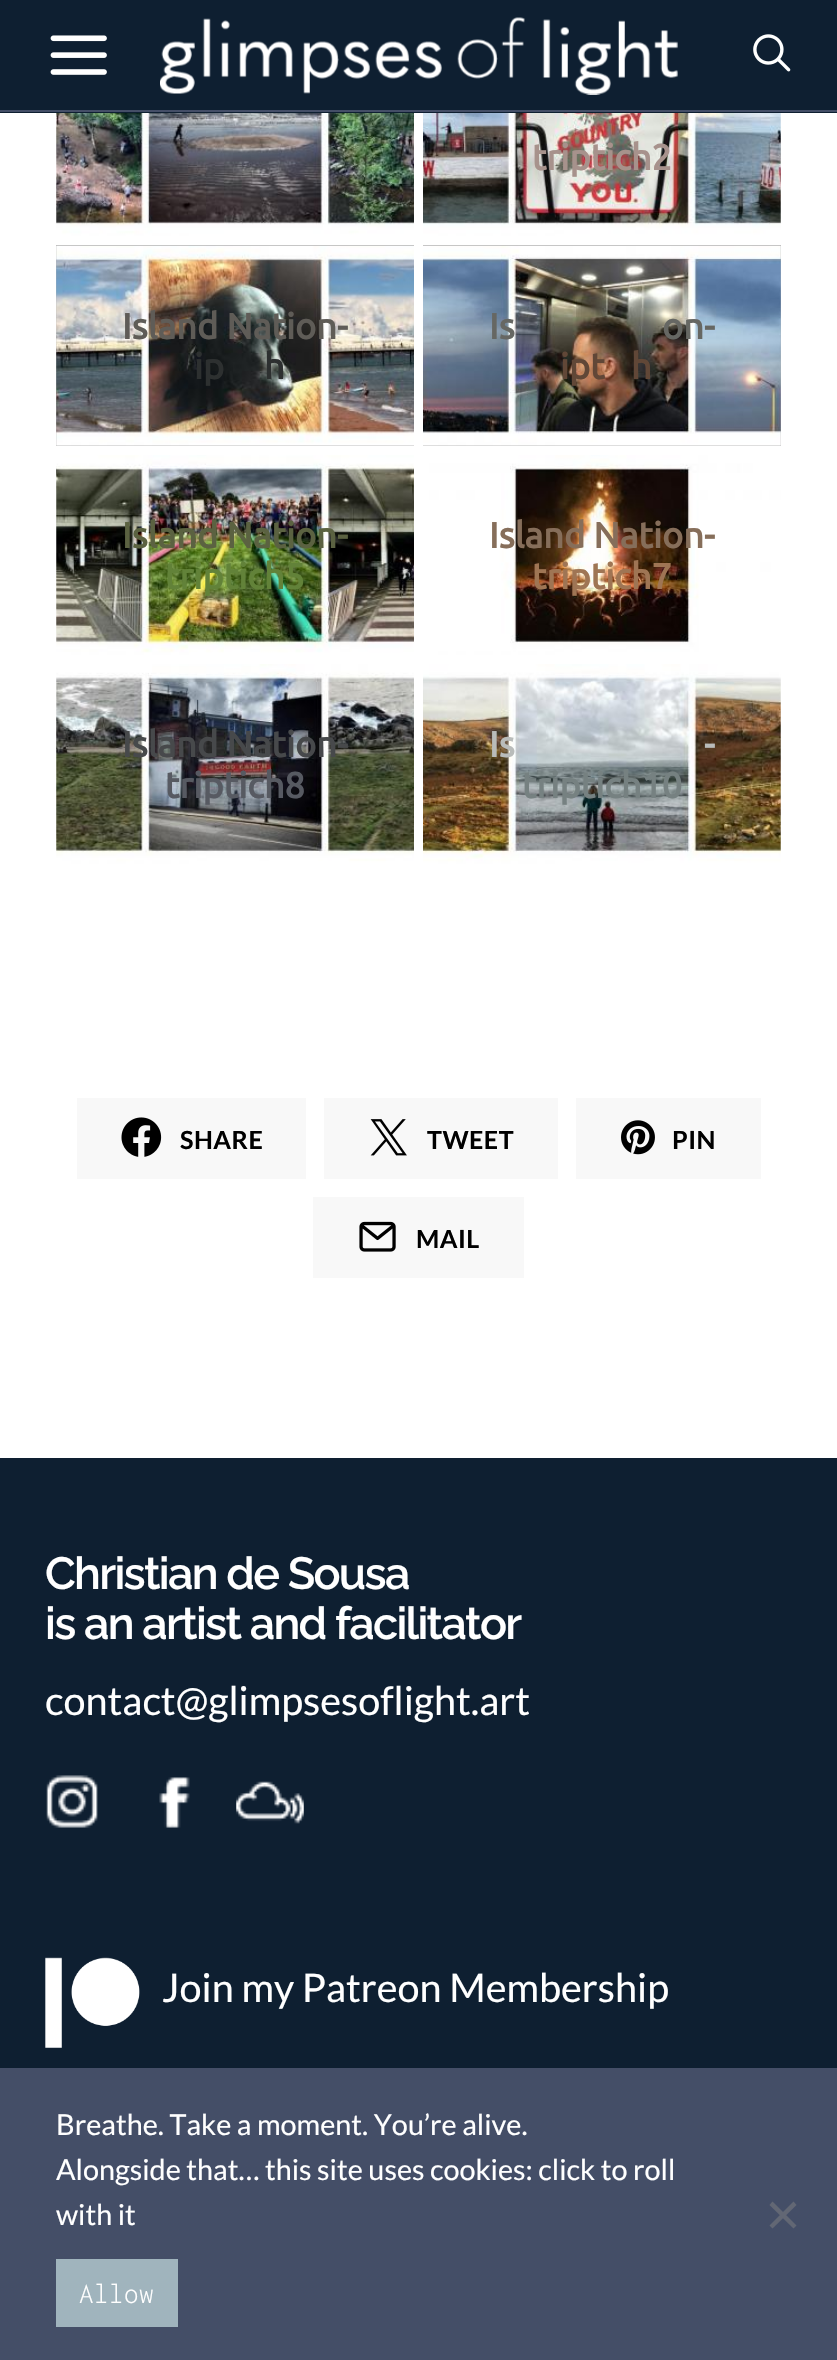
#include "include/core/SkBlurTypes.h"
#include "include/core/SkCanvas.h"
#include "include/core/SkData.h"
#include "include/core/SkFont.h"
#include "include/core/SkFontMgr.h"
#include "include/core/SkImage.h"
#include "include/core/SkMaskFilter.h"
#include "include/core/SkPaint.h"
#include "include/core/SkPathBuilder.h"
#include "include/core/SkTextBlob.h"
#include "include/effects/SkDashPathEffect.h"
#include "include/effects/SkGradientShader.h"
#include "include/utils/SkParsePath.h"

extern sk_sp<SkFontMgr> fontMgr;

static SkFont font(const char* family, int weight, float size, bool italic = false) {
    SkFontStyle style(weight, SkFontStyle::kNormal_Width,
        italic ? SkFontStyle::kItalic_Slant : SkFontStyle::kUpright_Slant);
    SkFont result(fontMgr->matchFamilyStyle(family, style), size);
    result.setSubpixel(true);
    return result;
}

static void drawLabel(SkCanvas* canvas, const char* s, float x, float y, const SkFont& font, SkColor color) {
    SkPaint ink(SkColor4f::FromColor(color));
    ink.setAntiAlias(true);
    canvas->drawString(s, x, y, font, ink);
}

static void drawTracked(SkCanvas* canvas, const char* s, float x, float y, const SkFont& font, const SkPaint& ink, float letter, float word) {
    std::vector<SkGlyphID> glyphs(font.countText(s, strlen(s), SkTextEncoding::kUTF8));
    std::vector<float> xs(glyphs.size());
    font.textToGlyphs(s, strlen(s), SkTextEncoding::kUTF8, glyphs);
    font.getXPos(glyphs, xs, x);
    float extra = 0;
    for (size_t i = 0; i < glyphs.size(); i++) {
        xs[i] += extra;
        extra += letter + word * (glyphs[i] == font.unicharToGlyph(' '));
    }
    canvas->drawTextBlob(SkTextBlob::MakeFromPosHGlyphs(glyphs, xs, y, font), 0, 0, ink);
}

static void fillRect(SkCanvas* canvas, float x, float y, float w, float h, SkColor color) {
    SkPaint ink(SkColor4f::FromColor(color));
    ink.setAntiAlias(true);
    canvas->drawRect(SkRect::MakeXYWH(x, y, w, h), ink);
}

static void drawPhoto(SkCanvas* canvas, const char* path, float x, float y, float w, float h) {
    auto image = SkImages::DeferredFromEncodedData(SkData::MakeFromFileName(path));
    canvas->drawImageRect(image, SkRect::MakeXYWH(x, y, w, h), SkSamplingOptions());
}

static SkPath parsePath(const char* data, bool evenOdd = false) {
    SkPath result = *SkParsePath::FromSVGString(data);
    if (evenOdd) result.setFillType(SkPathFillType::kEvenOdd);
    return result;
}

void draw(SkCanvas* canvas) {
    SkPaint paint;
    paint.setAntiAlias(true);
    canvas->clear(0xFFFFFFFF);
    fillRect(canvas, 0, 0, 837, 113, 0xFF0E1F31);
    fillRect(canvas, 0, 110, 837, 2, 0xFF444E67);
    drawPhoto(canvas, "assets/img1.png", 50, 35, 57, 40);
    drawPhoto(canvas, "assets/img2.png", 160, 17, 518, 78);
    drawPhoto(canvas, "assets/img3.png", 753, 34, 38, 38);
    drawPhoto(canvas, "assets/img4.png", 56, 113, 358, 123);
    drawPhoto(canvas, "assets/img5.png", 423, 113, 358, 123);
    SkFont font1 = font("Ubuntu", 700, 36);
    drawLabel(canvas, "triptich2", 532, 170, font1, 0xFFA7928C);
    fillRect(canvas, 56, 245, 358, 201, 0xFFB3B3B3);
    drawPhoto(canvas, "assets/img6.png", 56, 245, 358, 201);
    drawLabel(canvas, "Island Nation-", 122, 339, font1, 0xFF5F5C57);
    drawLabel(canvas, "ip", 194, 379, font1, 0xFF2D3030);
    drawLabel(canvas, "h", 264, 379, font1, 0xFF2D3030);
    fillRect(canvas, 423, 245, 358, 201, 0xFFB3B3B3);
    drawPhoto(canvas, "assets/img7.png", 423, 245, 358, 201);
    drawLabel(canvas, "Is", 489, 339, font1, 0xFF666763);
    drawLabel(canvas, "on-", 662, 339, font1, 0xFF666763);
    drawLabel(canvas, "ipt", 560, 379, font1, 0xFF614737);
    drawLabel(canvas, "h", 631, 379, font1, 0xFF614737);
    drawPhoto(canvas, "assets/img8.png", 56, 455, 358, 200);
    drawLabel(canvas, "Island Nation-", 122, 548, font1, 0xFF5B6241);
    drawLabel(canvas, "triptich5", 165, 589, font1, 0xFF628239);
    drawPhoto(canvas, "assets/img9.png", 423, 455, 358, 200);
    drawLabel(canvas, "Island Nation-", 489, 548, font1, 0xFF866E5A);
    drawLabel(canvas, "triptich7", 532, 589, font1, 0xFF9F7554);
    drawPhoto(canvas, "assets/img10.png", 56, 664, 358, 200);
    drawLabel(canvas, "Island Nation-", 122, 757, font1, 0xFF47494B);
    drawLabel(canvas, "triptich8", 165, 798, font1, 0xFF575A62);
    drawPhoto(canvas, "assets/img11.png", 423, 664, 358, 200);
    drawLabel(canvas, "Is", 489, 757, font1, 0xFFB9BCBA);
    drawLabel(canvas, "-", 704, 757, font1, 0xFFB9BCBA);
    drawLabel(canvas, "triptich10", 522, 798, font1, 0xFF768181);
    fillRect(canvas, 77, 1098, 229, 81, 0xFFF8F8F8);
    drawPhoto(canvas, "assets/img12.png", 121, 1117, 41, 40);
    SkFont font2 = font("Lato", 700, 25);
    paint.setColor(0xFF000000);
    drawTracked(canvas, "SHARE", 180, 1149, font2, paint, 0.5f, 0);
    fillRect(canvas, 324, 1098, 234, 81, 0xFFF8F8F8);
    drawPhoto(canvas, "assets/img13.png", 370, 1119, 37, 37);
    drawTracked(canvas, "TWEET", 427, 1149, font2, paint, 0.5f, 0);
    fillRect(canvas, 576, 1098, 185, 81, 0xFFF8F8F8);
    drawPhoto(canvas, "assets/img14.png", 621, 1120, 34, 35);
    drawTracked(canvas, "PIN", 672, 1149, font2, paint, 0.5f, 0);
    fillRect(canvas, 313, 1197, 211, 81, 0xFFF8F8F8);
    drawPhoto(canvas, "assets/img15.png", 359, 1221, 37, 31);
    drawTracked(canvas, "MAIL", 416, 1248, font2, paint, 0.5f, 0);
    fillRect(canvas, 0, 1458, 837, 610, 0xFF0E1F31);
    SkFont font3 = font("Raleway", 600, 45);
    paint.setColor(0xFFFFFFFF);
    drawTracked(canvas, "Christian de Sousa", 45, 1589, font3, paint, -1.7f, 0);
    drawTracked(canvas, "is an artist and facilitator", 45, 1639, font3, paint, -1.7f, 0);
    SkFont font4 = font("Lato", 400, 39.6f);
    drawLabel(canvas, "contact@glimpsesoflight.art", 45, 1715, font4, 0xFFFFFFFF);
    drawPhoto(canvas, "assets/img16.png", 46, 1775, 52, 53);
    drawPhoto(canvas, "assets/img17.png", 159, 1777, 31, 51);
    drawPhoto(canvas, "assets/img18.png", 236, 1781, 68, 43);
    drawPhoto(canvas, "assets/img19.png", 45, 1957, 95, 91);
    drawLabel(canvas, "Join my Patreon Membership", 162, 2002, font4, 0xFFFFFFFF);
    fillRect(canvas, 0, 2068, 837, 292, 0xFF444E67);
    SkFont font5 = font("Lato", 400, 28.8f);
    drawLabel(canvas, "Breathe. Take a moment. You’re alive.", 56, 2135, font5, 0xFFFFFFFF);
    drawLabel(canvas, "Alongside that… this site uses cookies: click to roll", 56, 2180, font5, 0xFFFFFFFF);
    drawLabel(canvas, "with it", 56, 2225, font5, 0xFFFFFFFF);
    paint.setColor(0xFF626774);
    canvas->drawPath(parsePath("M793.5 2201.5L796.5 2205L772.5 2228.5L769.5 2225.5Z"), paint);
    canvas->drawPath(parsePath("M769.5 2205L772.5 2201.5L796.5 2225.5L793.5 2228.5Z"), paint);
    fillRect(canvas, 56, 2259, 122, 68, 0xFFA0B4BD);
    SkFont font6 = font("Inconsolata", 300, 29);
    paint.setColor(0xFFFFFFFF);
    drawTracked(canvas, "Allow", 79, 2303, font6, paint, 0.5f, 0);
}
